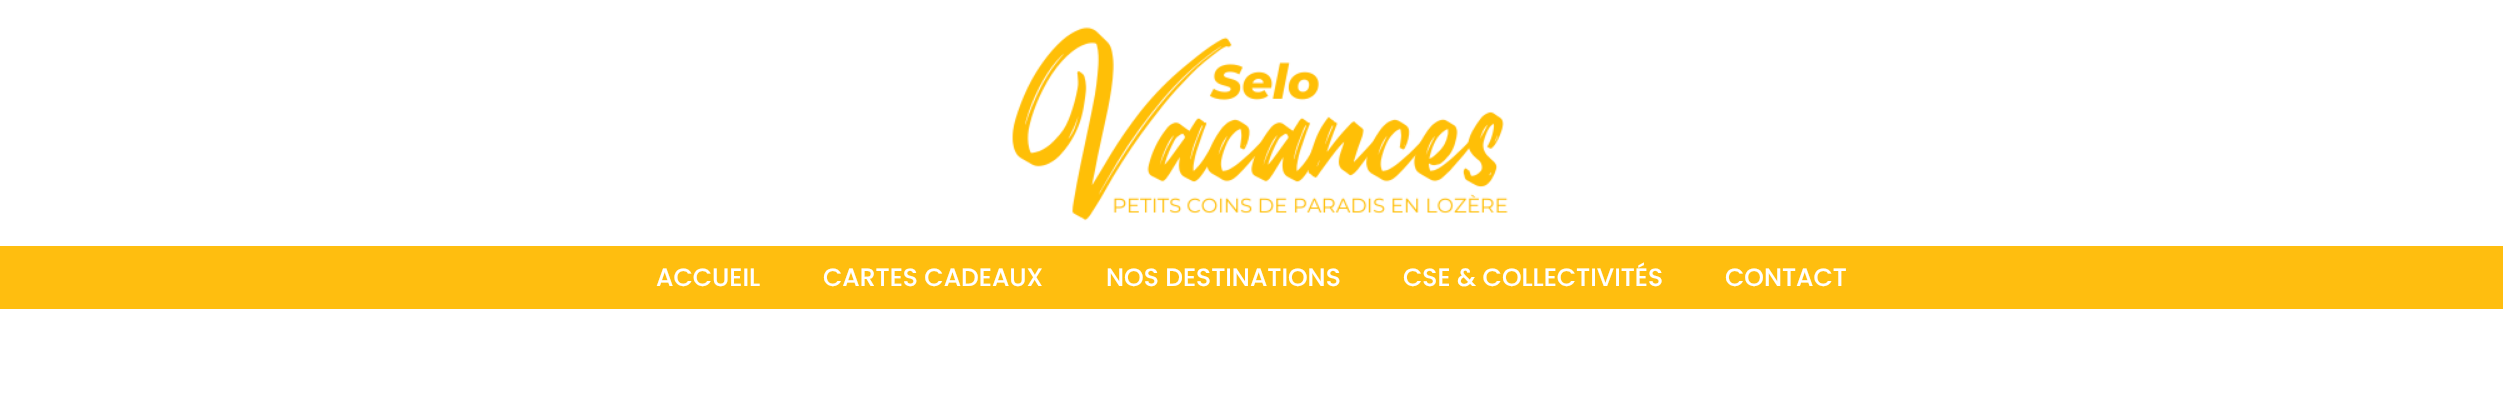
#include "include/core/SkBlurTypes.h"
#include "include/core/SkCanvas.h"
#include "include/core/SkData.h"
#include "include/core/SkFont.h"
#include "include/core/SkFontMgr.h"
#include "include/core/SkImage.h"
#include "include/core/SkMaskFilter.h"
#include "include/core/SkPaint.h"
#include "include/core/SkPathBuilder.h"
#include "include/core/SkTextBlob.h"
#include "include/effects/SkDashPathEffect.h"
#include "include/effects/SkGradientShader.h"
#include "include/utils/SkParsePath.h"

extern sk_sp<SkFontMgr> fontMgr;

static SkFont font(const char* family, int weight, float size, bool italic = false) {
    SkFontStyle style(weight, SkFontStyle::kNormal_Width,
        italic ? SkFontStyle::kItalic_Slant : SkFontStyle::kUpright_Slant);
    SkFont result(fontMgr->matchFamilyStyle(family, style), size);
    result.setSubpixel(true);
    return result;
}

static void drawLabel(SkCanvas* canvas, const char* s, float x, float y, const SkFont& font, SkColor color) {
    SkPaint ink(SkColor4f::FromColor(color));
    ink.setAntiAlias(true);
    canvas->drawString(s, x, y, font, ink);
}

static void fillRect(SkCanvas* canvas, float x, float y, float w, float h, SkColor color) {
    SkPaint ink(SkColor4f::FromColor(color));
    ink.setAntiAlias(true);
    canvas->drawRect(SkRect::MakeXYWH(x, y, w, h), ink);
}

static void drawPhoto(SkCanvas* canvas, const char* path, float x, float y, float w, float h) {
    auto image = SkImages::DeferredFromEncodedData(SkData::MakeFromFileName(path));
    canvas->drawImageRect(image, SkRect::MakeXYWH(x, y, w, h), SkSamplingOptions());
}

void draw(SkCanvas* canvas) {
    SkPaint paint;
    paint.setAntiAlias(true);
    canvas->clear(0xFFFFFFFF);
    drawPhoto(canvas, "assets/img1.png", 1012, 27, 496, 194);
    fillRect(canvas, 0, 246, 2503, 63, 0xFFFFBE0F);
    SkFont font1 = font("Poppins", 500, 25);
    drawLabel(canvas, "ACCUEIL", 656, 286, font1, 0xFFFFFFFF);
    drawLabel(canvas, "CARTES CADEAUX", 823, 286, font1, 0xFFFFFFFF);
    drawLabel(canvas, "NOS DESTINATIONS", 1106, 286, font1, 0xFFFFFFFF);
    drawLabel(canvas, "CSE & COLLECTIVITÉS", 1403, 286, font1, 0xFFFFFFFF);
    drawLabel(canvas, "CONTACT", 1725, 286, font1, 0xFFFFFFFF);
}
